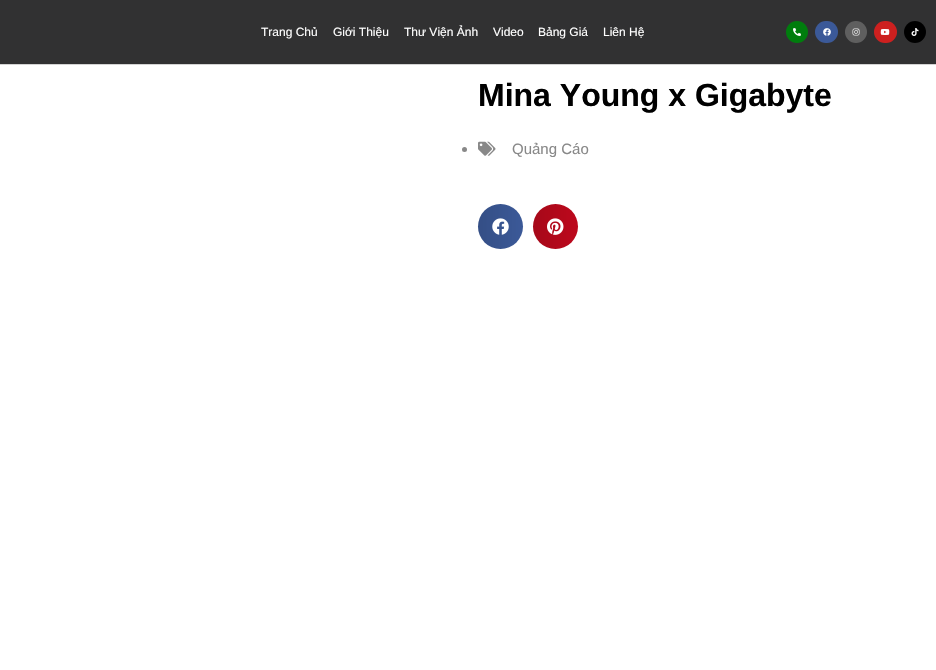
#include "include/core/SkBlurTypes.h"
#include "include/core/SkCanvas.h"
#include "include/core/SkData.h"
#include "include/core/SkFont.h"
#include "include/core/SkFontMgr.h"
#include "include/core/SkImage.h"
#include "include/core/SkMaskFilter.h"
#include "include/core/SkPaint.h"
#include "include/core/SkPathBuilder.h"
#include "include/core/SkTextBlob.h"
#include "include/effects/SkDashPathEffect.h"
#include "include/effects/SkGradientShader.h"
#include "include/utils/SkParsePath.h"

extern sk_sp<SkFontMgr> fontMgr;

static SkFont font(const char* family, int weight, float size, bool italic = false) {
    SkFontStyle style(weight, SkFontStyle::kNormal_Width,
        italic ? SkFontStyle::kItalic_Slant : SkFontStyle::kUpright_Slant);
    SkFont result(fontMgr->matchFamilyStyle(family, style), size);
    result.setSubpixel(true);
    return result;
}

static void drawLabel(SkCanvas* canvas, const char* s, float x, float y, const SkFont& font, SkColor color) {
    SkPaint ink(SkColor4f::FromColor(color));
    ink.setAntiAlias(true);
    canvas->drawString(s, x, y, font, ink);
}

static void fillRect(SkCanvas* canvas, float x, float y, float w, float h, SkColor color) {
    SkPaint ink(SkColor4f::FromColor(color));
    ink.setAntiAlias(true);
    canvas->drawRect(SkRect::MakeXYWH(x, y, w, h), ink);
}

static void fillRRect(SkCanvas* canvas, float x, float y, float w, float h, float radius, SkColor color) {
    SkPaint ink(SkColor4f::FromColor(color));
    ink.setAntiAlias(true);
    canvas->drawRoundRect(SkRect::MakeXYWH(x, y, w, h), radius, radius, ink);
}

static void drawPhoto(SkCanvas* canvas, const char* path, float x, float y, float w, float h) {
    auto image = SkImages::DeferredFromEncodedData(SkData::MakeFromFileName(path));
    canvas->drawImageRect(image, SkRect::MakeXYWH(x, y, w, h), SkSamplingOptions());
}

void draw(SkCanvas* canvas) {
    SkPaint paint;
    paint.setAntiAlias(true);
    canvas->clear(0xFFFFFFFF);
    fillRect(canvas, 0, 64, 936, 1, 0xFFD3D3D3);
    fillRect(canvas, 0, 0, 936, 64, 0xFF313132);
    SkFont font1 = font("Liberation Sans", 400, 12);
    drawLabel(canvas, "Trang Chủ", 261, 36, font1, 0xFFFFFFFF);
    drawLabel(canvas, "Giới Thiệu", 333, 36, font1, 0xFFFFFFFF);
    drawLabel(canvas, "Thư Viện Ảnh", 404, 36, font1, 0xFFFFFFFF);
    drawLabel(canvas, "Video", 493, 36, font1, 0xFFFFFFFF);
    drawLabel(canvas, "Bảng Giá", 538, 36, font1, 0xFFFFFFFF);
    drawLabel(canvas, "Liên Hệ", 603, 36, font1, 0xFFFFFFFF);
    paint.setColor(0xFF007D0D);
    canvas->drawCircle(797, 32, 11, paint);
    drawPhoto(canvas, "assets/img1.png", 793, 28, 8, 8);
    fillRRect(canvas, 815, 21, 23, 22, 11, 0xFF3B5998);
    drawPhoto(canvas, "assets/img2.png", 823, 28, 8, 8);
    paint.setColor(0xFF5F5F5F);
    canvas->drawCircle(856, 32, 11, paint);
    drawPhoto(canvas, "assets/img3.png", 852, 28, 8, 8);
    fillRRect(canvas, 874, 21, 23, 22, 11, 0xFFCD201F);
    drawPhoto(canvas, "assets/img4.png", 880, 29, 10, 6);
    paint.setColor(0xFF000000);
    canvas->drawCircle(915, 32, 11, paint);
    drawPhoto(canvas, "assets/img5.png", 911, 28, 8, 8);
    SkFont font2 = font("Liberation Sans", 700, 32);
    drawLabel(canvas, "Mina Young x Gigabyte", 478, 106, font2, 0xFF000000);
    paint.setColor(0xFF888888);
    canvas->drawCircle(464.5f, 149.5f, 2.5f, paint);
    drawPhoto(canvas, "assets/img6.png", 478, 141, 18, 15);
    SkFont font3 = font("Liberation Sans", 400, 15);
    drawLabel(canvas, "Quảng Cáo", 512, 154, font3, 0xFF888888);
    paint.setColor(0xFF3B5998);
    canvas->drawCircle(500.5f, 226.5f, 22.5f, paint);
    {
        const SkColor colors[] = {0x1F000000, 0x00000000};
        const float stops[] = {0, 1};
        const SkPoint ends[] = {{478, 227}, {523, 227}};
        paint.setShader(SkGradientShader::MakeLinear(ends, colors, stops, 2, SkTileMode::kClamp));
        paint.setAlpha(255);
    }
    canvas->drawCircle(500.5f, 226.5f, 22.5f, paint);
    drawPhoto(canvas, "assets/img7.png", 492, 218, 17, 17);
    paint.setShader(nullptr);
    paint.setColor(0xFFBD081C);
    canvas->drawCircle(555.5f, 226.5f, 22.5f, paint);
    {
        const SkColor colors[] = {0x1F000000, 0x00000000};
        const float stops[] = {0, 1};
        const SkPoint ends[] = {{533, 227}, {578, 227}};
        paint.setShader(SkGradientShader::MakeLinear(ends, colors, stops, 2, SkTileMode::kClamp));
        paint.setAlpha(255);
    }
    canvas->drawCircle(555.5f, 226.5f, 22.5f, paint);
    drawPhoto(canvas, "assets/img8.png", 547, 218, 17, 17);
}
